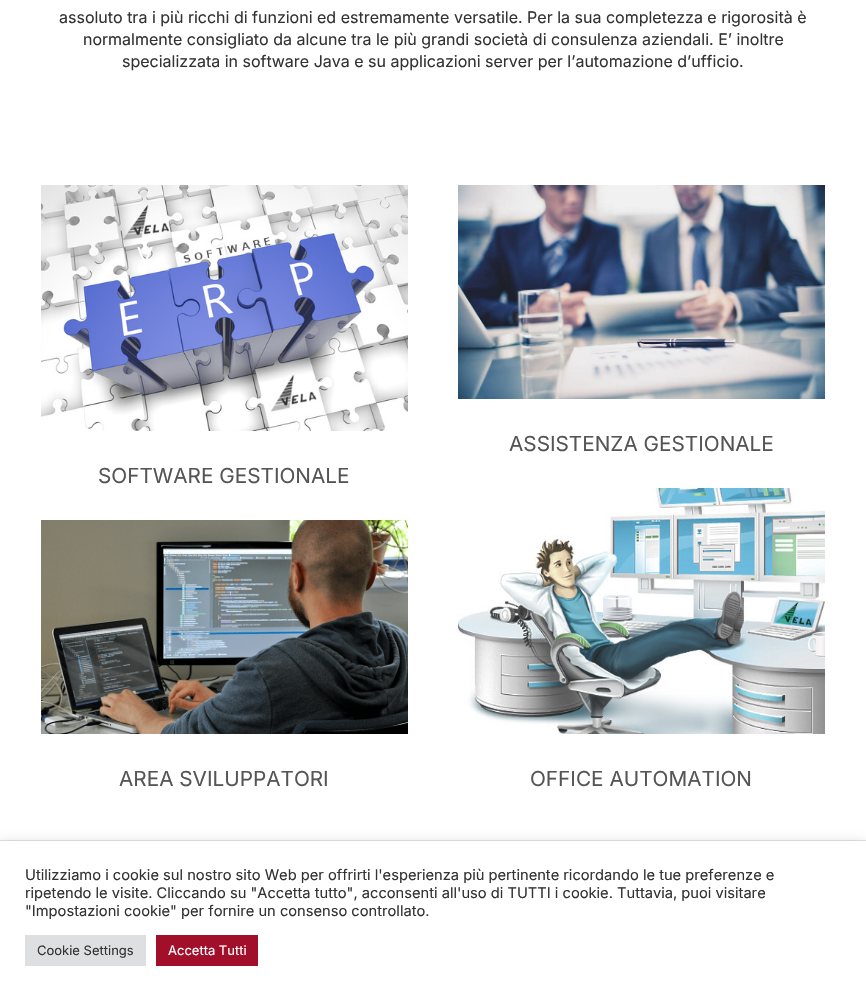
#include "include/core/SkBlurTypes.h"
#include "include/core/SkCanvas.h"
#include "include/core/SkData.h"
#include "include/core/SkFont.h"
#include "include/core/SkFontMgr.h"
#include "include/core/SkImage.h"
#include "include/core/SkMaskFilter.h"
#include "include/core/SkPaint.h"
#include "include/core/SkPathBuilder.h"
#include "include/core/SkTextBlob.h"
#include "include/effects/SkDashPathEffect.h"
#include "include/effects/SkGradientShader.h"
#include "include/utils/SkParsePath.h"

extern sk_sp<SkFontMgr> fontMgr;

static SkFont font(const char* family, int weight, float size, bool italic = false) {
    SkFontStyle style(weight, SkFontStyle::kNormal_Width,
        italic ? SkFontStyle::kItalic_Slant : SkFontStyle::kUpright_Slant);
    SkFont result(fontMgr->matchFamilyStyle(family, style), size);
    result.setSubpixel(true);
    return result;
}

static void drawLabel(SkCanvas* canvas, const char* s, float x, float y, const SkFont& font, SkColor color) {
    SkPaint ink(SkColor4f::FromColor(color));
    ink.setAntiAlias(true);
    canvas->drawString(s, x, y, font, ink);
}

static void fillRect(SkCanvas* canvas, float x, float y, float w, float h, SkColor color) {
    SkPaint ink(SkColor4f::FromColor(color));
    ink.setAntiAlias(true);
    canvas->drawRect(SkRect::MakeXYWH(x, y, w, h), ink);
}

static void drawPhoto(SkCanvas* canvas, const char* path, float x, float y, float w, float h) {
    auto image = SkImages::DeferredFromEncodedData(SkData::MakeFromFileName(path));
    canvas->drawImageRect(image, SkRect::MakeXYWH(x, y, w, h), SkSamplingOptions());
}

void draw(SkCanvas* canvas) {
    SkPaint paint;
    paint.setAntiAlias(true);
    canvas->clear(0xFFFFFFFF);
    SkFont font1 = font("Inter", 400, 16);
    drawLabel(canvas, "assoluto tra i più ricchi di funzioni ed estremamente versatile. Per la sua completezza e rigorosità è", 59, 23, font1, 0xFF333333);
    drawLabel(canvas, "normalmente consigliato da alcune tra le più grandi società di consulenza aziendali. E’ inoltre", 83, 45, font1, 0xFF333333);
    drawLabel(canvas, "specializzata in software Java e su applicazioni server per l’automazione d’ufficio.", 122, 67, font1, 0xFF333333);
    drawPhoto(canvas, "assets/img1.png", 41, 185, 367, 246);
    SkFont font2 = font("Inter", 400, 20.75f);
    drawLabel(canvas, "SOFTWARE GESTIONALE", 98, 483, font2, 0xFF555555);
    drawPhoto(canvas, "assets/img2.png", 41, 520, 367, 214);
    drawLabel(canvas, "AREA SVILUPPATORI", 119, 786, font2, 0xFF555555);
    drawPhoto(canvas, "assets/img3.png", 458, 185, 367, 214);
    drawLabel(canvas, "ASSISTENZA GESTIONALE", 509, 451, font2, 0xFF555555);
    drawPhoto(canvas, "assets/img4.png", 458, 488, 367, 246);
    drawLabel(canvas, "OFFICE AUTOMATION", 530, 786, font2, 0xFF555555);
    fillRect(canvas, 0, 840, 866, 1, 0xFFE0E0E0);
    paint.setColor(0x4DACABAB);
    paint.setMaskFilter(SkMaskFilter::MakeBlur(kNormal_SkBlurStyle, 5));
    canvas->drawRect(SkRect::MakeXYWH(0, 840, 866, 155), paint);
    paint.setMaskFilter(nullptr);
    fillRect(canvas, 0, 841, 866, 155, 0xFFFFFFFF);
    SkFont font3 = font("Inter", 400, 14.67f);
    drawLabel(canvas, "Utilizziamo i cookie sul nostro sito Web per offrirti l'esperienza più pertinente ricordando le tue preferenze e", 25, 880, font3, 0xFF333333);
    drawLabel(canvas, "ripetendo le visite. Cliccando su \"Accetta tutto\", acconsenti all'uso di TUTTI i cookie. Tuttavia, puoi visitare", 25, 898, font3, 0xFF333333);
    drawLabel(canvas, "\"Impostazioni cookie\" per fornire un consenso controllato.", 25, 916, font3, 0xFF333333);
    fillRect(canvas, 25, 935, 121, 31, 0xFFDEDFE0);
    SkFont font4 = font("Inter", 400, 13);
    drawLabel(canvas, "Cookie Settings", 37, 955, font4, 0xFF333333);
    fillRect(canvas, 156, 935, 102, 31, 0xFFA10F2B);
    drawLabel(canvas, "Accetta Tutti", 168, 955, font4, 0xFFFFFFFF);
}
